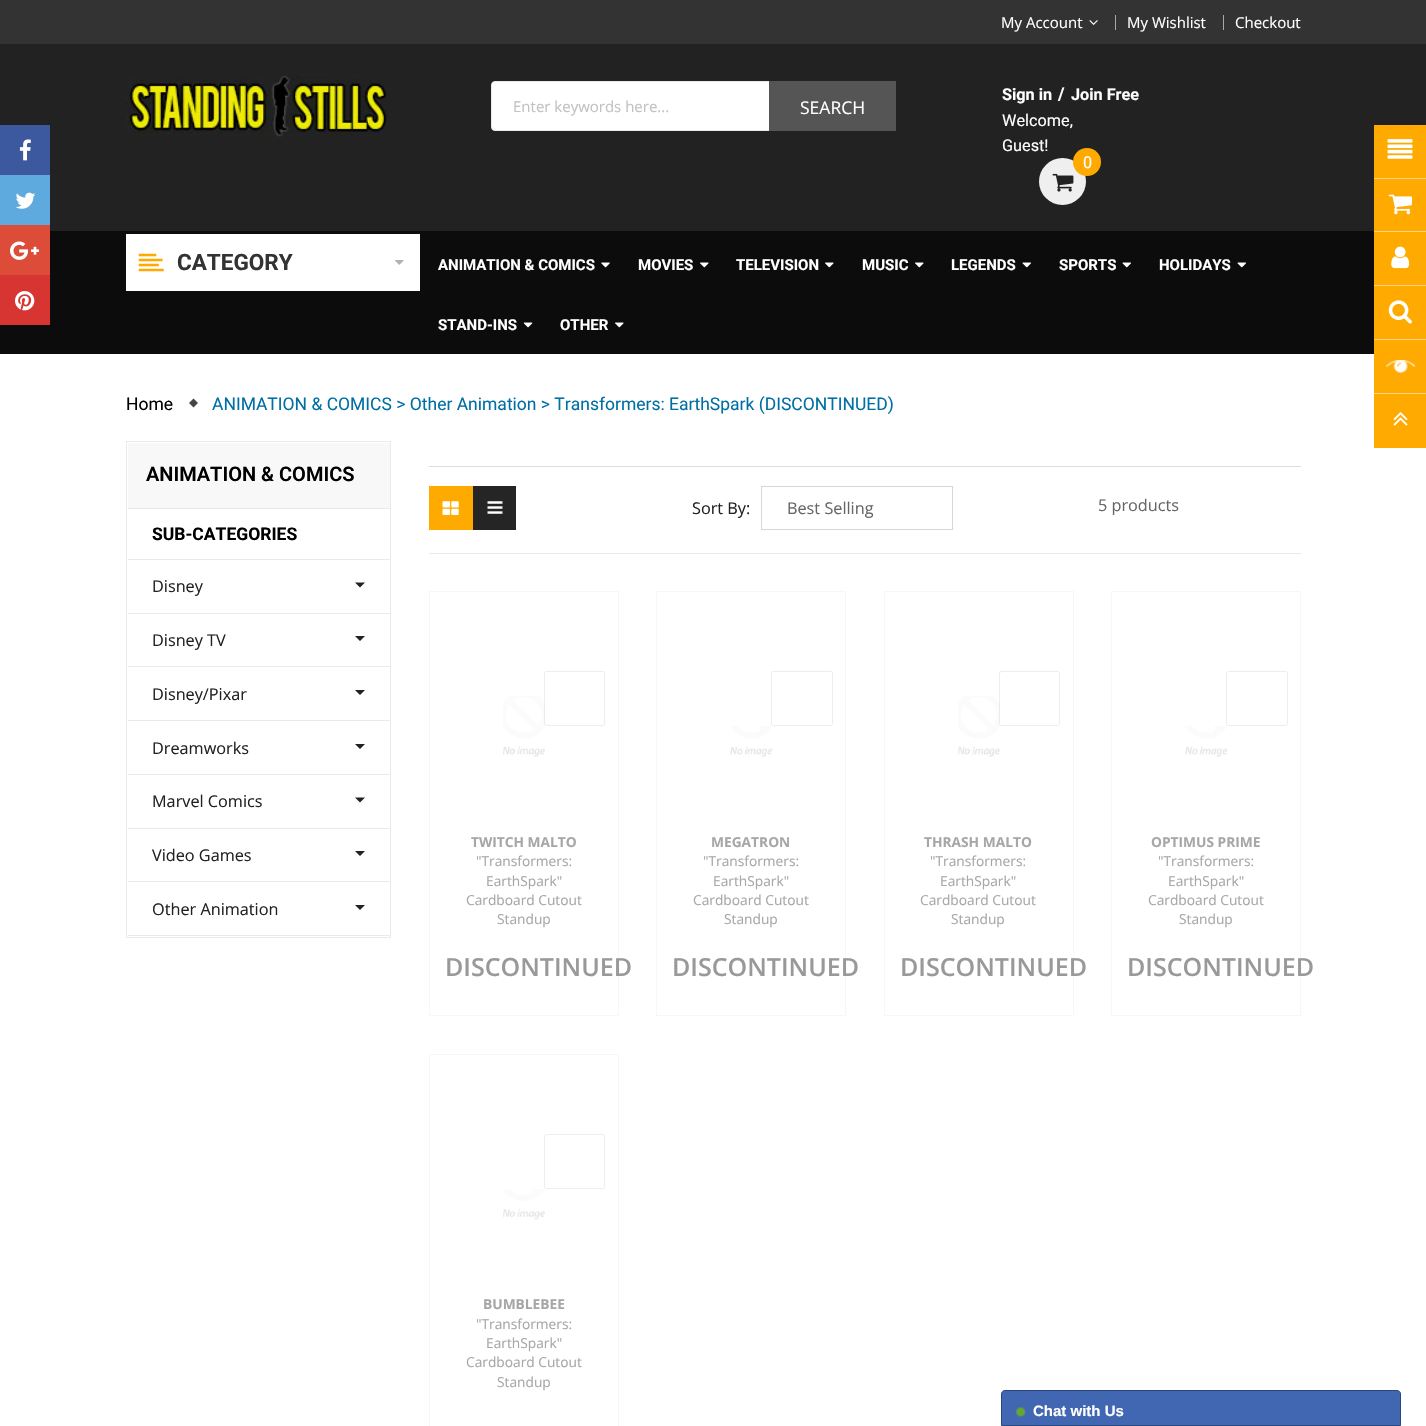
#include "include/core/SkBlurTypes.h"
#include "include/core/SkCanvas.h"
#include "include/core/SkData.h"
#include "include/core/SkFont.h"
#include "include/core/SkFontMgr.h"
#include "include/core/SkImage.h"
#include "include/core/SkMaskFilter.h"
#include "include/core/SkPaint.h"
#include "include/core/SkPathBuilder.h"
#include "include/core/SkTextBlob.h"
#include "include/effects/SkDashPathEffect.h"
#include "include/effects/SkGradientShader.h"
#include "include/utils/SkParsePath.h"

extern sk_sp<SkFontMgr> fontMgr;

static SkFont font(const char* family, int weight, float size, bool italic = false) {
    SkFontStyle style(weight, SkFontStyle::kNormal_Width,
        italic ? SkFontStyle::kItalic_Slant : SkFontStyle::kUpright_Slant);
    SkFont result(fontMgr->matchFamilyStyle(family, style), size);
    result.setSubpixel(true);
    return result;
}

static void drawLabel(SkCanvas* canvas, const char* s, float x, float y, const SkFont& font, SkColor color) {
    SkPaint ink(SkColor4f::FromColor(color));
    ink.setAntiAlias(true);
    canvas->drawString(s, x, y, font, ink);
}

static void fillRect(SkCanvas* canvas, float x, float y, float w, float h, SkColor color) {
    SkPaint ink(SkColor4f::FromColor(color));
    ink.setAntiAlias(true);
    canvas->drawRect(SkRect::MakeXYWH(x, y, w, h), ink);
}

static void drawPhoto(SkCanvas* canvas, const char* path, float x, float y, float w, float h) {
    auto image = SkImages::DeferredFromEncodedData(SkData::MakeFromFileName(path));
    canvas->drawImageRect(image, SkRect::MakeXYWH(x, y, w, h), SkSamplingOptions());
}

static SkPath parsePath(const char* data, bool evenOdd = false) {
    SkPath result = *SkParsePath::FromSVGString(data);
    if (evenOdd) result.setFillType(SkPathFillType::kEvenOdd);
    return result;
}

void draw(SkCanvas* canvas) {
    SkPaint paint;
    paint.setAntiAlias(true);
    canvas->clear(0xFFFFFFFF);
    fillRect(canvas, 0, 44, 1426, 187, 0xFF222222);
    fillRect(canvas, 0, 125, 50, 50, 0xFF3C599F);
    drawPhoto(canvas, "assets/img1.png", 19, 139, 12, 22);
    fillRect(canvas, 0, 175, 50, 50, 0xFF5EA9DD);
    drawPhoto(canvas, "assets/img2.png", 15, 192, 21, 17);
    fillRect(canvas, 0, 234, 1374, 120, 0xFF0C0C0C);
    fillRect(canvas, 0, 225, 50, 50, 0xFFDD4B39);
    drawPhoto(canvas, "assets/img3.png", 10, 241, 29, 19);
    fillRect(canvas, 0, 275, 50, 50, 0xFFD73532);
    drawPhoto(canvas, "assets/img4.png", 15, 291, 20, 20);
    fillRect(canvas, 0, 0, 1426, 44, 0xFF333333);
    SkFont font1 = font("Open Sans", 400, 15);
    drawLabel(canvas, "My Account", 1001, 28, font1, 0xFFFFFFFF);
    drawPhoto(canvas, "assets/img5.png", 1089, 20, 9, 5);
    fillRect(canvas, 1115, 15, 1, 15, 0xFFA8A8A8);
    drawLabel(canvas, "My Wishlist", 1127, 28, font1, 0xFFFFFFFF);
    fillRect(canvas, 1223, 15, 1, 15, 0xFFA8A8A8);
    drawLabel(canvas, "Checkout", 1235, 28, font1, 0xFFFFFFFF);
    fillRect(canvas, 50, 231, 1324, 3, 0xFF0C0C0C);
    drawPhoto(canvas, "assets/img6.png", 126, 75, 265, 62);
    paint.setColor(0xFFFFFFFF);
    canvas->drawRoundRect(SkRect::MakeXYWH(491.5f, 81.5f, 404, 49), 3.5f, 3.5f, paint);
    paint.setStroke(true);
    paint.setStrokeWidth(1);
    paint.setColor(0xFFEAEAEA);
    canvas->drawRoundRect(SkRect::MakeXYWH(491.5f, 81.5f, 404, 49), 3.5f, 3.5f, paint);
    drawLabel(canvas, "Enter keywords here...", 513, 112, font1, 0xFFC2C2C2);
    fillRect(canvas, 769, 81, 127, 50, 0xFF555555);
    SkFont font2 = font("Open Sans", 400, 17.5f);
    drawLabel(canvas, "SEARCH", 800, 114, font2, 0xFFFFFFFF);
    SkFont font3 = font("Roboto", 700, 16.25f);
    drawLabel(canvas, "Sign in", 1002, 100, font3, 0xFFFFFFFF);
    SkFont font4 = font("Roboto", 700, 17.5f);
    drawLabel(canvas, "/", 1058, 100, font4, 0xFFFFFFFF);
    drawLabel(canvas, "Join Free", 1071, 100, font3, 0xFFFFFFFF);
    SkFont font5 = font("Roboto", 400, 16.25f);
    drawLabel(canvas, "Welcome,", 1002, 126, font5, 0xFFFFFFFF);
    drawLabel(canvas, "Guest!", 1002, 151, font5, 0xFFFFFFFF);
    paint.setStroke(false);
    paint.setColor(0xFFEFEFEF);
    canvas->drawCircle(1062.5f, 181.5f, 23.5f, paint);
    drawPhoto(canvas, "assets/img7.png", 1052, 173, 22, 19);
    paint.setColor(0xFFFFAA00);
    canvas->drawCircle(1087, 162, 14, paint);
    drawLabel(canvas, "0", 1083, 168, font5, 0xFFFFFFFF);
    fillRect(canvas, 126, 234, 294, 57, 0xFFFFFFFF);
    drawPhoto(canvas, "assets/img8.png", 138, 253, 26, 19);
    SkFont font6 = font("Roboto", 700, 22.5f);
    drawLabel(canvas, "CATEGORY", 177, 270, font6, 0xFF333333);
    drawPhoto(canvas, "assets/img9.png", 395, 260, 9, 5);
    SkFont font7 = font("Roboto", 700, 15);
    drawLabel(canvas, "ANIMATION & COMICS", 438, 270, font7, 0xFFFFFFFF);
    drawPhoto(canvas, "assets/img10.png", 601, 262, 9, 6);
    drawLabel(canvas, "MOVIES", 638, 270, font7, 0xFFFFFFFF);
    drawPhoto(canvas, "assets/img11.png", 700, 262, 9, 6);
    drawLabel(canvas, "TELEVISION", 736, 270, font7, 0xFFFFFFFF);
    drawPhoto(canvas, "assets/img11.png", 825, 262, 9, 6);
    drawLabel(canvas, "MUSIC", 862, 270, font7, 0xFFFFFFFF);
    drawPhoto(canvas, "assets/img11.png", 915, 262, 9, 6);
    drawLabel(canvas, "LEGENDS", 951, 270, font7, 0xFFFFFFFF);
    drawPhoto(canvas, "assets/img12.png", 1022, 262, 9, 6);
    drawLabel(canvas, "SPORTS", 1059, 270, font7, 0xFFFFFFFF);
    drawPhoto(canvas, "assets/img12.png", 1122, 262, 9, 6);
    drawLabel(canvas, "HOLIDAYS", 1159, 270, font7, 0xFFFFFFFF);
    drawPhoto(canvas, "assets/img12.png", 1237, 262, 9, 6);
    drawLabel(canvas, "STAND-INS", 438, 330, font7, 0xFFFFFFFF);
    drawPhoto(canvas, "assets/img13.png", 523, 322, 10, 6);
    drawLabel(canvas, "OTHER", 560, 330, font7, 0xFFFFFFFF);
    drawPhoto(canvas, "assets/img11.png", 615, 322, 9, 6);
    fillRect(canvas, 1374, 125, 52, 323, 0xFFFFAA00);
    fillRect(canvas, 1374, 178, 52, 1, 0xFFFFD580);
    drawPhoto(canvas, "assets/img14.png", 1387, 139, 26, 20);
    fillRect(canvas, 1374, 231, 52, 1, 0xFFFFD580);
    drawPhoto(canvas, "assets/img15.png", 1388, 194, 24, 21);
    fillRect(canvas, 1374, 285, 52, 1, 0xFFFFD580);
    drawPhoto(canvas, "assets/img16.png", 1391, 246, 19, 23);
    fillRect(canvas, 1374, 339, 52, 1, 0xFFFFD580);
    drawPhoto(canvas, "assets/img17.png", 1388, 300, 24, 24);
    fillRect(canvas, 1374, 393, 52, 1, 0xFFFFD580);
    drawPhoto(canvas, "assets/img18.png", 1386, 360, 29, 13);
    drawPhoto(canvas, "assets/img19.png", 1393, 412, 15, 14);
    SkFont font8 = font("Roboto", 400, 17.5f);
    drawLabel(canvas, "Home", 126, 410, font8, 0xFF000000);
    paint.setColor(0xFF464646);
    canvas->drawPath(parsePath("M193.5 398.5L198 403L193.5 407.5L189 403Z"), paint);
    drawLabel(canvas, "ANIMATION & COMICS > Other Animation > Transformers: EarthSpark (DISCONTINUED)", 212, 410, font8, 0xFF006FA4);
    paint.setStroke(true);
    paint.setColor(0xFFEAEAEA);
    canvas->drawRect(SkRect::MakeXYWH(126.5f, 441.5f, 264, 496), paint);
    fillRect(canvas, 128, 443, 262, 65, 0xFFF8F8F8);
    fillRect(canvas, 128, 508, 262, 1, 0xFFEAEAEA);
    SkFont font9 = font("Roboto", 600, 20);
    drawLabel(canvas, "ANIMATION & COMICS", 146, 481, font9, 0xFF000000);
    fillRect(canvas, 128, 559, 262, 1, 0xFFEAEAEA);
    drawLabel(canvas, "SUB-CATEGORIES", 152, 540, font4, 0xFF000000);
    fillRect(canvas, 128, 613, 262, 1, 0xFFEAEAEA);
    SkFont font10 = font("Open Sans", 400, 16.25f);
    drawLabel(canvas, "Disney", 152, 592, font10, 0xFF222222);
    paint.setStroke(false);
    paint.setColor(0xFF222222);
    canvas->drawPath(parsePath("M355 582.5H365L360 587.5ZM355 636H365L360 641Z"), paint);
    fillRect(canvas, 128, 666, 262, 1, 0xFFEAEAEA);
    drawLabel(canvas, "Disney TV", 152, 646, font10, 0xFF222222);
    fillRect(canvas, 128, 720, 262, 1, 0xFFEAEAEA);
    drawLabel(canvas, "Disney/Pixar", 152, 700, font10, 0xFF222222);
    canvas->drawPath(parsePath("M355 690H365L360 695ZM355 744H365L360 749Z"), paint);
    fillRect(canvas, 128, 774, 262, 1, 0xFFEAEAEA);
    drawLabel(canvas, "Dreamworks", 152, 754, font10, 0xFF222222);
    fillRect(canvas, 128, 828, 262, 1, 0xFFEAEAEA);
    drawLabel(canvas, "Marvel Comics", 152, 807, font10, 0xFF222222);
    canvas->drawPath(parsePath("M355 797.5H365L360 802.5ZM355 851H365L360 856Z"), paint);
    fillRect(canvas, 128, 881, 262, 1, 0xFFEAEAEA);
    drawLabel(canvas, "Video Games", 152, 861, font10, 0xFF222222);
    fillRect(canvas, 128, 935, 262, 1, 0xFFEAEAEA);
    drawLabel(canvas, "Other Animation", 152, 915, font10, 0xFF222222);
    canvas->drawPath(parsePath("M355 905H365L360 910Z"), paint);
    fillRect(canvas, 429, 466, 872, 1, 0xFFDDDDDD);
    fillRect(canvas, 429, 553, 872, 1, 0xFFEAEAEA);
    fillRect(canvas, 429, 486, 44, 44, 0xFFFFAA00);
    drawPhoto(canvas, "assets/img20.png", 442, 501, 17, 14);
    fillRect(canvas, 473, 486, 43, 44, 0xFF252525);
    drawPhoto(canvas, "assets/img21.png", 487, 501, 16, 13);
    drawLabel(canvas, "Sort By:", 692, 514, font10, 0xFF222222);
    paint.setStroke(true);
    paint.setColor(0xFFD7D7D7);
    canvas->drawRect(SkRect::MakeXYWH(761.5f, 486.5f, 191, 43), paint);
    drawLabel(canvas, "Best Selling", 787, 514, font10, 0xFF666666);
    drawLabel(canvas, "5 products", 1098, 511, font10, 0xFF666666);
    paint.setColor(0xFFF7F7F7);
    canvas->drawRect(SkRect::MakeXYWH(429.5f, 591.5f, 189, 424), paint);
    drawPhoto(canvas, "assets/img22.png", 503, 696, 42, 61);
    paint.setColor(0x4DC8C8C8);
    canvas->drawRoundRect(SkRect::MakeXYWH(544.5f, 671.5f, 60, 54), 2, 2, paint);
    SkFont font11 = font("Open Sans", 700, 13.75f);
    drawLabel(canvas, "TWITCH MALTO", 471, 847, font11, 0xFFA7A7A7);
    SkFont font12 = font("Open Sans", 400, 13.75f);
    drawLabel(canvas, "\"Transformers:", 476, 866, font12, 0xFFA7A7A7);
    drawLabel(canvas, "EarthSpark\"", 486, 886, font12, 0xFFA7A7A7);
    drawLabel(canvas, "Cardboard Cutout", 466, 905, font12, 0xFFA7A7A7);
    drawLabel(canvas, "Standup", 497, 924, font12, 0xFFA7A7A7);
    SkFont font13 = font("Open Sans", 600, 25);
    drawLabel(canvas, "DISCONTINUED", 445, 976, font13, 0xFF999999);
    paint.setColor(0xFFF7F7F7);
    canvas->drawRect(SkRect::MakeXYWH(656.5f, 591.5f, 189, 424), paint);
    paint.setColor(0xFFEDEDED);
    canvas->drawRoundRect(SkRect::MakeXYWH(771.5f, 671.5f, 61, 54), 2, 2, paint);
    drawPhoto(canvas, "assets/img23.png", 730, 726, 43, 31);
    drawLabel(canvas, "MEGATRON", 711, 847, font11, 0xFFA7A7A7);
    drawLabel(canvas, "\"Transformers:", 703, 866, font12, 0xFFA7A7A7);
    drawLabel(canvas, "EarthSpark\"", 713, 886, font12, 0xFFA7A7A7);
    drawLabel(canvas, "Cardboard Cutout", 693, 905, font12, 0xFFA7A7A7);
    drawLabel(canvas, "Standup", 724, 924, font12, 0xFFA7A7A7);
    drawLabel(canvas, "DISCONTINUED", 672, 976, font13, 0xFF999999);
    paint.setColor(0xFFF7F7F7);
    canvas->drawRect(SkRect::MakeXYWH(884.5f, 591.5f, 189, 424), paint);
    drawPhoto(canvas, "assets/img24.png", 958, 696, 42, 61);
    paint.setColor(0x4DC8C8C8);
    canvas->drawRoundRect(SkRect::MakeXYWH(999.5f, 671.5f, 60, 54), 2, 2, paint);
    drawLabel(canvas, "THRASH MALTO", 924, 847, font11, 0xFFA7A7A7);
    drawLabel(canvas, "\"Transformers:", 930, 866, font12, 0xFFA7A7A7);
    drawLabel(canvas, "EarthSpark\"", 940, 886, font12, 0xFFA7A7A7);
    drawLabel(canvas, "Cardboard Cutout", 920, 905, font12, 0xFFA7A7A7);
    drawLabel(canvas, "Standup", 951, 924, font12, 0xFFA7A7A7);
    drawLabel(canvas, "DISCONTINUED", 900, 976, font13, 0xFF999999);
    paint.setColor(0xFFF7F7F7);
    canvas->drawRect(SkRect::MakeXYWH(1111.5f, 591.5f, 189, 424), paint);
    paint.setColor(0xFFEDEDED);
    canvas->drawRoundRect(SkRect::MakeXYWH(1226.5f, 671.5f, 61, 54), 2, 2, paint);
    drawPhoto(canvas, "assets/img23.png", 1185, 726, 43, 31);
    drawLabel(canvas, "OPTIMUS PRIME", 1151, 847, font11, 0xFFA7A7A7);
    drawLabel(canvas, "\"Transformers:", 1158, 866, font12, 0xFFA7A7A7);
    drawLabel(canvas, "EarthSpark\"", 1168, 886, font12, 0xFFA7A7A7);
    drawLabel(canvas, "Cardboard Cutout", 1148, 905, font12, 0xFFA7A7A7);
    drawLabel(canvas, "Standup", 1179, 924, font12, 0xFFA7A7A7);
    drawLabel(canvas, "DISCONTINUED", 1127, 976, font13, 0xFF999999);
    paint.setColor(0xFFF7F7F7);
    canvas->drawRect(SkRect::MakeXYWH(429.5f, 1054.5f, 189, 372), paint);
    paint.setColor(0xFFEDEDED);
    canvas->drawRoundRect(SkRect::MakeXYWH(544.5f, 1134.5f, 60, 54), 2, 2, paint);
    drawPhoto(canvas, "assets/img25.png", 503, 1189, 42, 31);
    drawLabel(canvas, "BUMBLEBEE", 483, 1309, font11, 0xFFA7A7A7);
    drawLabel(canvas, "\"Transformers:", 476, 1329, font12, 0xFFA7A7A7);
    drawLabel(canvas, "EarthSpark\"", 486, 1348, font12, 0xFFA7A7A7);
    drawLabel(canvas, "Cardboard Cutout", 466, 1367, font12, 0xFFA7A7A7);
    drawLabel(canvas, "Standup", 497, 1387, font12, 0xFFA7A7A7);
    paint.setStroke(false);
    paint.setColor(0xFF4267B2);
    canvas->drawPath(parsePath("M1005 1390.5H1397C1399 1390.5 1400.5 1392 1400.5 1394V1425.5H1001.5V1394C1001.5 1392 1003 1390.5 1005 1390.5Z"), paint);
    paint.setStroke(true);
    paint.setColor(0xFF29487D);
    canvas->drawPath(parsePath("M1005 1390.5H1397C1399 1390.5 1400.5 1392 1400.5 1394V1425.5H1001.5V1394C1001.5 1392 1003 1390.5 1005 1390.5Z"), paint);
    drawPhoto(canvas, "assets/img26.png", 1016, 1407, 10, 10);
    SkFont font14 = font("Liberation Sans", 700, 15);
    drawLabel(canvas, "Chat with Us", 1033, 1416, font14, 0xFFFFFFFF);
}
